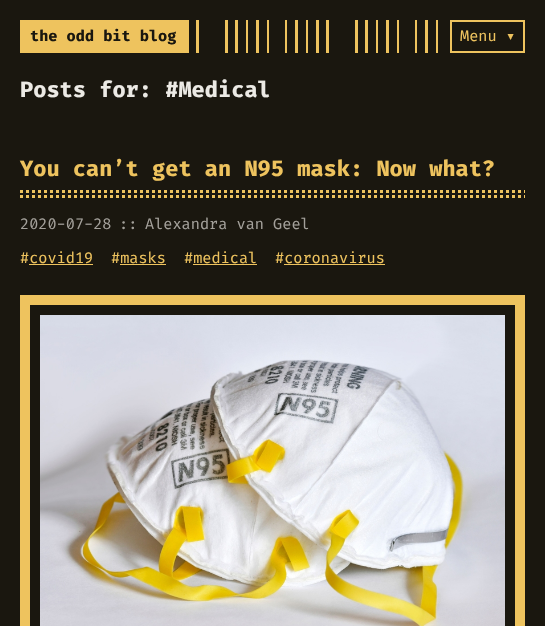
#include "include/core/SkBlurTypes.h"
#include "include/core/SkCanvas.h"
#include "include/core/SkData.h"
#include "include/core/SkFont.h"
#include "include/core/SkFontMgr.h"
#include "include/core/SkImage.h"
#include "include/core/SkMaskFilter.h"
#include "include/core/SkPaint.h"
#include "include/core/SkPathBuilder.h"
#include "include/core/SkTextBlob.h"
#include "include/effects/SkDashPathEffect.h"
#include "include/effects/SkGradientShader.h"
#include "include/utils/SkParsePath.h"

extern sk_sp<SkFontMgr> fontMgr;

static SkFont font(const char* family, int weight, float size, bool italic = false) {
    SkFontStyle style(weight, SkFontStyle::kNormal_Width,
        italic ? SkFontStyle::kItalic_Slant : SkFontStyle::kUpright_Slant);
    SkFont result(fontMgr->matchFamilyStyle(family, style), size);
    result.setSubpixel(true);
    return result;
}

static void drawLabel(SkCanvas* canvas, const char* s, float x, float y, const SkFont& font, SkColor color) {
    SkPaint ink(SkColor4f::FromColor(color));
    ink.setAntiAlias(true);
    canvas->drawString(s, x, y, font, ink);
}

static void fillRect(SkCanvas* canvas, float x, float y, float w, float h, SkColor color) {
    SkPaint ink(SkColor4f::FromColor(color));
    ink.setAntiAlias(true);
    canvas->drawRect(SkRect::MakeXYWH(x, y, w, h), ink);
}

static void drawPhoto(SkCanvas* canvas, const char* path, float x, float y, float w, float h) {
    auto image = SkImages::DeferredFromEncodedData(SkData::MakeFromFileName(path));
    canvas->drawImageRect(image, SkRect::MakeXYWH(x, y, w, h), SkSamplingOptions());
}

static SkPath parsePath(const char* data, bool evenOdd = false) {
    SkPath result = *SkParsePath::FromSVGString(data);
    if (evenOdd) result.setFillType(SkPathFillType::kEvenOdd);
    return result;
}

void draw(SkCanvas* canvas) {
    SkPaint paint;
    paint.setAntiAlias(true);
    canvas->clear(0xFF1A170F);
    fillRect(canvas, 20, 20, 166, 33, 0xFFEEC35E);
    SkFont font1 = font("Fira Code", 700, 15.25f);
    drawLabel(canvas, "the odd bit blog", 30, 41, font1, 0xFF1A170F);
    {
        const SkColor colors[] = {0xFFEEC35E, 0xFFEEC35E, 0xFF1A170F, 0xFF1A170F, 0xFFEEC35E, 0xFFEEC35E, 0xFF1A170F, 0xFF1A170F, 0xFFEEC35E, 0xFF1A170F, 0xFF1A170F, 0xFFEEC35E, 0xFF1A170F, 0xFF1A170F, 0xFFEEC35E, 0xFFEEC35E, 0xFF1A170F, 0xFF1A170F, 0xFFEEC35E, 0xFFEEC35E, 0xFF1A170F, 0xFF1A170F, 0xFFEEC35E, 0xFFEEC35E, 0xFF1A170F, 0xFF1A170F, 0xFFEEC35E, 0xFFEEC35E, 0xFF1A170F, 0xFF1A170F, 0xFFEEC35E, 0xFFEEC35E, 0xFF1A170F, 0xFF1A170F, 0xFFEEC35E, 0xFF1A170F, 0xFF1A170F, 0xFFEEC35E, 0xFFEEC35E, 0xFF1A170F, 0xFF1A170F, 0xFFEEC35E, 0xFFEEC35E, 0xFF1A170F, 0xFF1A170F, 0xFFEEC35E, 0xFFEEC35E, 0xFF1A170F, 0xFF1A170F, 0xFFEEC35E, 0xFFEEC35E, 0xFF1A170F, 0xFF1A170F, 0xFFEEC35E, 0xFFEEC35E, 0xFF1A170F, 0xFF1A170F, 0xFFEEC35E, 0xFF1A170F, 0xFF1A170F, 0xFFEEC35E, 0xFF1A170F, 0xFF1A170F, 0xFFEEC35E, 0xFFEEC35E, 0xFF1A170F, 0xFF1A170F, 0xFFEEC35E, 0xFFEEC35E, 0xFF1A170F, 0xFF1A170F, 0xFFEEC35E, 0xFFEEC35E, 0xFF1A170F, 0xFF1A170F, 0xFFEEC35E, 0xFFEEC35E, 0xFF1A170F, 0xFF1A170F, 0xFFEEC35E, 0xFFEEC35E, 0xFF1A170F, 0xFF1A170F, 0xFFEEC35E, 0xFF1A170F, 0xFF1A170F, 0xFFEEC35E, 0xFFEEC35E, 0xFF1A170F, 0xFF1A170F, 0xFFEEC35E, 0xFFEEC35E, 0xFF1A170F, 0xFF1A170F, 0xFFEEC35E, 0xFFEEC35E, 0xFF1A170F, 0xFF1A170F};
        const float stops[] = {0, 0.01f, 0.01f, 0.04f, 0.04f, 0.05f, 0.05f, 0.08f, 0.08f, 0.08f, 0.12f, 0.12f, 0.12f, 0.15f, 0.15f, 0.16f, 0.16f, 0.19f, 0.19f, 0.2f, 0.2f, 0.23f, 0.23f, 0.24f, 0.24f, 0.27f, 0.27f, 0.28f, 0.28f, 0.31f, 0.31f, 0.32f, 0.32f, 0.35f, 0.35f, 0.35f, 0.38f, 0.38f, 0.39f, 0.39f, 0.42f, 0.42f, 0.43f, 0.43f, 0.46f, 0.46f, 0.47f, 0.47f, 0.5f, 0.5f, 0.51f, 0.51f, 0.54f, 0.54f, 0.55f, 0.55f, 0.58f, 0.58f, 0.58f, 0.62f, 0.62f, 0.62f, 0.65f, 0.65f, 0.66f, 0.66f, 0.69f, 0.69f, 0.7f, 0.7f, 0.73f, 0.73f, 0.74f, 0.74f, 0.77f, 0.77f, 0.78f, 0.78f, 0.81f, 0.81f, 0.82f, 0.82f, 0.85f, 0.85f, 0.85f, 0.88f, 0.88f, 0.89f, 0.89f, 0.92f, 0.92f, 0.93f, 0.93f, 0.96f, 0.96f, 0.97f, 0.97f, 1};
        const SkPoint ends[] = {{186, 37}, {446, 36}};
        paint.setShader(SkGradientShader::MakeLinear(ends, colors, stops, 98, SkTileMode::kClamp));
        paint.setAlpha(255);
    }
    canvas->drawRect(SkRect::MakeXYWH(186, 20, 252, 33), paint);
    paint.setStroke(true);
    paint.setStrokeWidth(2);
    paint.setShader(nullptr);
    paint.setColor(0xFFEEC35E);
    canvas->drawRect(SkRect::MakeXYWH(451, 21, 73, 31), paint);
    SkFont font2 = font("Fira Code", 400, 15.25f);
    drawLabel(canvas, "Menu", 460, 41, font2, 0xFFEEC35E);
    SkFont font3 = font("DejaVu Sans Mono", 400, 15.25f);
    drawLabel(canvas, "▾", 506, 41, font3, 0xFFEEC35E);
    SkFont font4 = font("Fira Code", 700, 22);
    drawLabel(canvas, "Posts for: #Medical", 20, 97, font4, 0xFFECEAE5);
    paint.setStrokeWidth(3);
    paint.setPathEffect(SkDashPathEffect::Make({{3, 3}}, 0));
    canvas->drawPath(parsePath("M20 196.5H525"), paint);
    paint.setPathEffect(nullptr);
    drawLabel(canvas, "You can’t get an N95 mask: Now what?", 20, 176, font4, 0xFFEEC35E);
    paint.setPathEffect(SkDashPathEffect::Make({{3, 3}}, 0));
    canvas->drawPath(parsePath("M20 191.5H525"), paint);
    paint.setPathEffect(nullptr);
    drawLabel(canvas, "2020-07-28", 20, 229, font2, 0xFFA3A09A);
    drawLabel(canvas, "::", 119, 229, font2, 0xFFA3A09A);
    drawLabel(canvas, "Alexandra van Geel", 145, 229, font2, 0xFFA3A09A);
    drawLabel(canvas, "#covid19", 20, 263, font2, 0xFFEEC35E);
    drawLabel(canvas, "#masks", 111, 263, font2, 0xFFEEC35E);
    drawLabel(canvas, "#medical", 184, 263, font2, 0xFFEEC35E);
    drawLabel(canvas, "#coronavirus", 275, 263, font2, 0xFFEEC35E);
    fillRect(canvas, 29, 264, 64, 1, 0xFFEEC35E);
    fillRect(canvas, 120, 264, 46, 1, 0xFFEEC35E);
    fillRect(canvas, 193, 264, 64, 1, 0xFFEEC35E);
    fillRect(canvas, 284, 264, 101, 1, 0xFFEEC35E);
    paint.setStrokeWidth(10);
    canvas->drawRect(SkRect::MakeXYWH(25, 300, 495, 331), paint);
    drawPhoto(canvas, "assets/img1.png", 40, 315, 465, 311);
}
